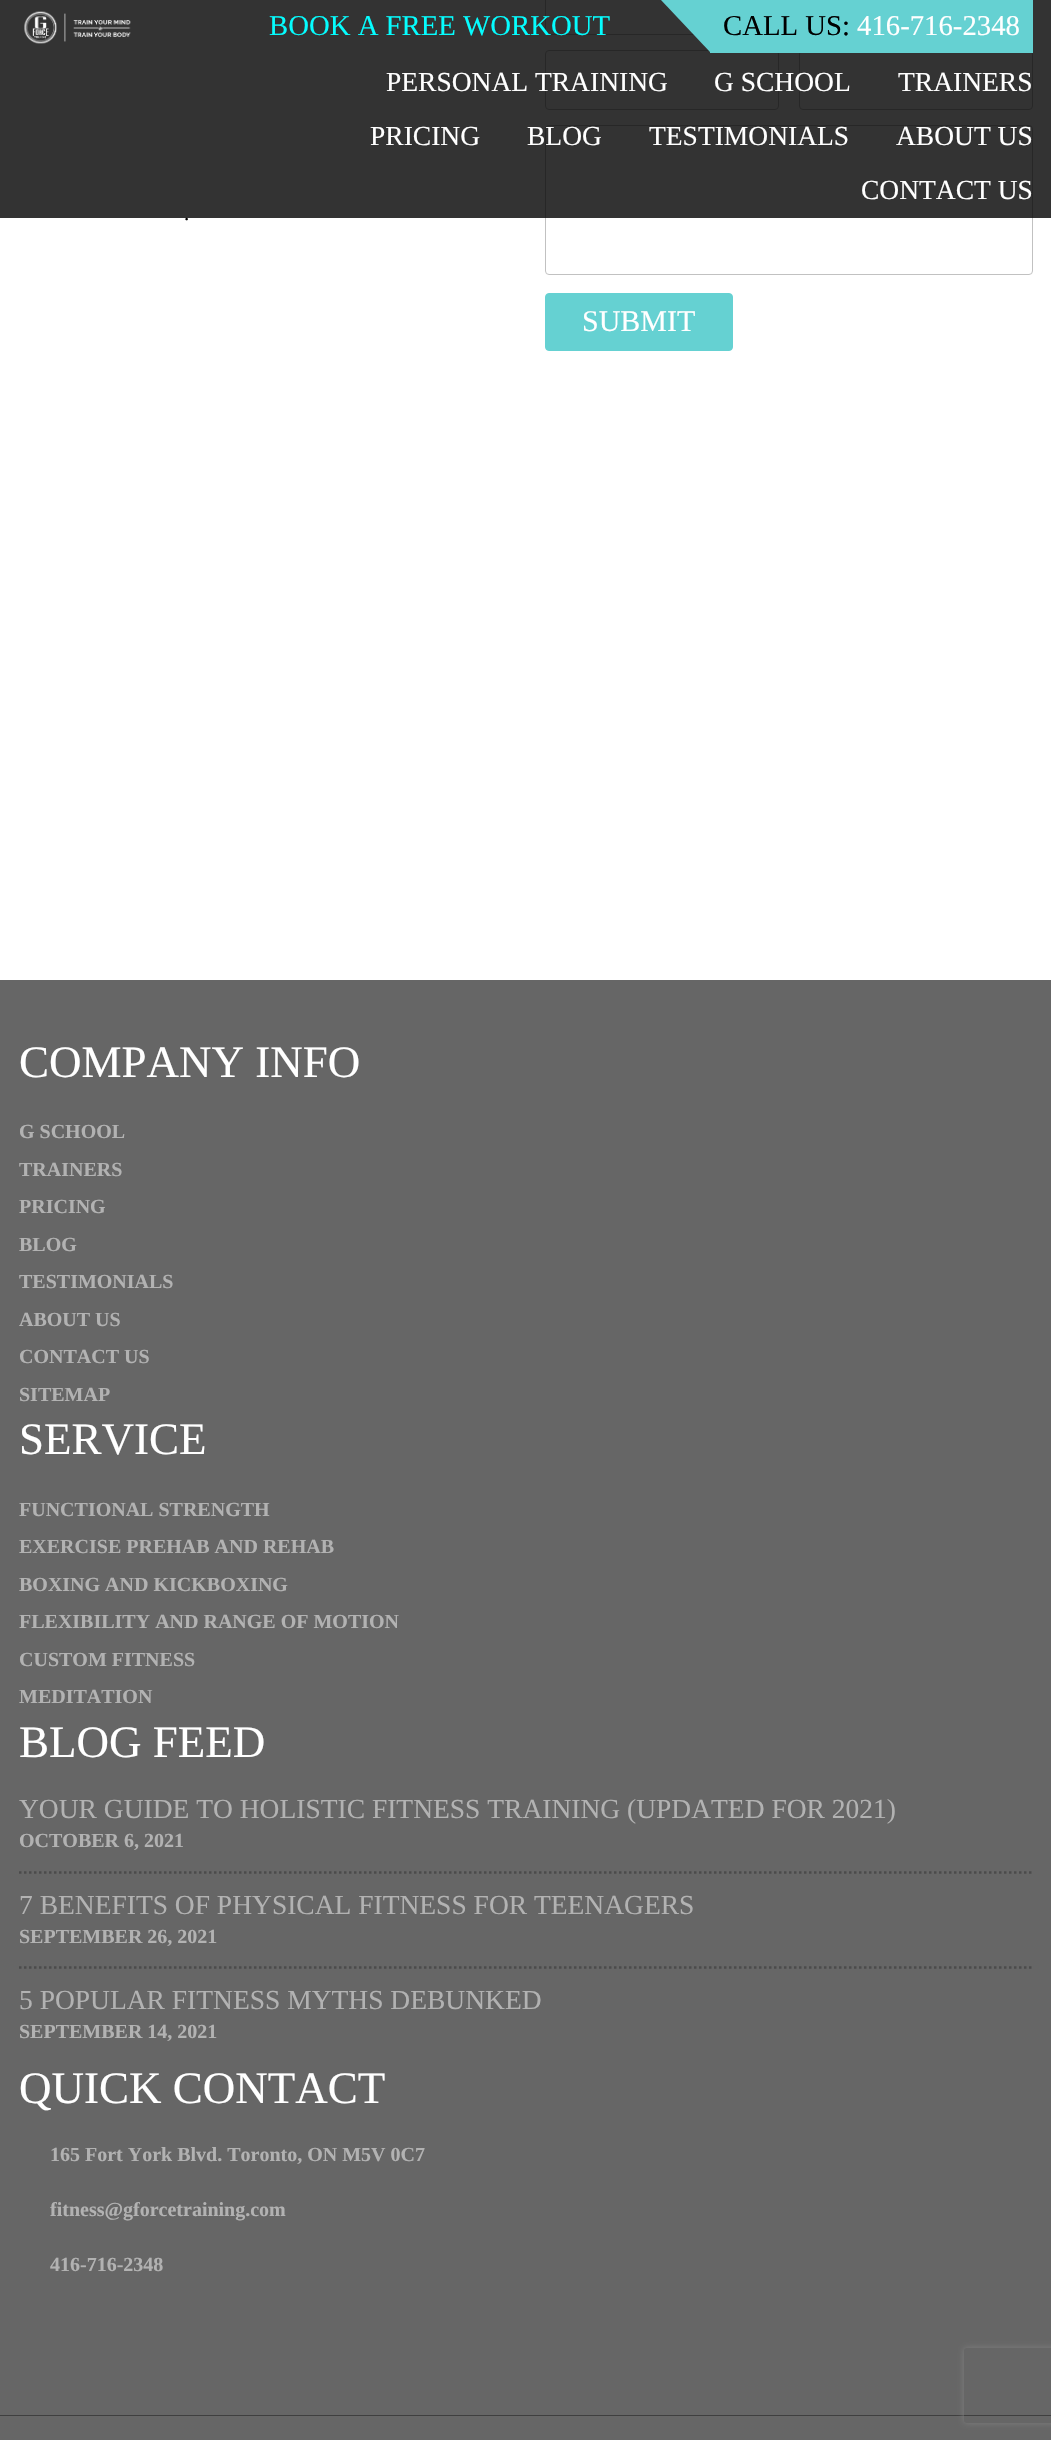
#include "include/core/SkBlurTypes.h"
#include "include/core/SkCanvas.h"
#include "include/core/SkData.h"
#include "include/core/SkFont.h"
#include "include/core/SkFontMgr.h"
#include "include/core/SkImage.h"
#include "include/core/SkMaskFilter.h"
#include "include/core/SkPaint.h"
#include "include/core/SkPathBuilder.h"
#include "include/core/SkTextBlob.h"
#include "include/effects/SkDashPathEffect.h"
#include "include/effects/SkGradientShader.h"
#include "include/utils/SkParsePath.h"

extern sk_sp<SkFontMgr> fontMgr;

static SkFont font(const char* family, int weight, float size, bool italic = false) {
    SkFontStyle style(weight, SkFontStyle::kNormal_Width,
        italic ? SkFontStyle::kItalic_Slant : SkFontStyle::kUpright_Slant);
    SkFont result(fontMgr->matchFamilyStyle(family, style), size);
    result.setSubpixel(true);
    return result;
}

static void drawLabel(SkCanvas* canvas, const char* s, float x, float y, const SkFont& font, SkColor color) {
    SkPaint ink(SkColor4f::FromColor(color));
    ink.setAntiAlias(true);
    canvas->drawString(s, x, y, font, ink);
}

static void fillRect(SkCanvas* canvas, float x, float y, float w, float h, SkColor color) {
    SkPaint ink(SkColor4f::FromColor(color));
    ink.setAntiAlias(true);
    canvas->drawRect(SkRect::MakeXYWH(x, y, w, h), ink);
}

static void drawPhoto(SkCanvas* canvas, const char* path, float x, float y, float w, float h) {
    auto image = SkImages::DeferredFromEncodedData(SkData::MakeFromFileName(path));
    canvas->drawImageRect(image, SkRect::MakeXYWH(x, y, w, h), SkSamplingOptions());
}

static SkPath parsePath(const char* data, bool evenOdd = false) {
    SkPath result = *SkParsePath::FromSVGString(data);
    if (evenOdd) result.setFillType(SkPathFillType::kEvenOdd);
    return result;
}

void draw(SkCanvas* canvas) {
    SkPaint paint;
    paint.setAntiAlias(true);
    canvas->clear(0xFFFFFFFF);
    SkFont font1 = font("Liberation Serif", 400, 21);
    drawLabel(canvas, ".", 184, 220, font1, 0xFF000000);
    paint.setStroke(true);
    paint.setStrokeWidth(1);
    paint.setColor(0xFFC1C1C1);
    canvas->drawRoundRect(SkRect::MakeXYWH(545.5f, -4.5f, 233, 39), 3.5f, 3.5f, paint);
    canvas->drawRoundRect(SkRect::MakeXYWH(545.5f, 50.5f, 233, 59), 3.5f, 3.5f, paint);
    canvas->drawRoundRect(SkRect::MakeXYWH(799.5f, 50.5f, 233, 59), 3.5f, 3.5f, paint);
    canvas->drawRoundRect(SkRect::MakeXYWH(545.5f, 125.5f, 487, 149), 3.5f, 3.5f, paint);
    fillRect(canvas, 0, 0, 1051, 218, 0xCC000000);
    drawPhoto(canvas, "assets/img1.png", 24, 11, 107, 33);
    SkFont font2 = font("Liberation Serif", 400, 28.75f);
    drawLabel(canvas, "BOOK A FREE WORKOUT", 269, 35, font2, 0xFF05FDFF);
    fillRect(canvas, 710, 0, 323, 53, 0xFF65D1D2);
    paint.setStroke(false);
    paint.setColor(0xFF65D1D2);
    canvas->drawPath(parsePath("M710 0V52L661 0Z"), paint);
    drawLabel(canvas, "CALL US:", 723, 35, font2, 0xFF000000);
    drawLabel(canvas, "416-716-2348", 857, 35, font2, 0xFFFFFFFF);
    SkFont font3 = font("Liberation Serif", 400, 27.5f);
    drawLabel(canvas, "PERSONAL TRAINING", 386, 91, font3, 0xFFFFFFFF);
    drawLabel(canvas, "G SCHOOL", 714, 91, font3, 0xFFFFFFFF);
    drawLabel(canvas, "TRAINERS", 898, 91, font3, 0xFFFFFFFF);
    drawLabel(canvas, "PRICING", 370, 145, font3, 0xFFFFFFFF);
    drawLabel(canvas, "BLOG", 527, 145, font3, 0xFFFFFFFF);
    drawLabel(canvas, "TESTIMONIALS", 649, 145, font3, 0xFFFFFFFF);
    drawLabel(canvas, "ABOUT US", 896, 145, font3, 0xFFFFFFFF);
    drawLabel(canvas, "CONTACT US", 861, 199, font3, 0xFFFFFFFF);
    canvas->drawRoundRect(SkRect::MakeXYWH(545.5f, 293.5f, 187, 57), 3.5f, 3.5f, paint);
    paint.setStroke(true);
    canvas->drawRoundRect(SkRect::MakeXYWH(545.5f, 293.5f, 187, 57), 3.5f, 3.5f, paint);
    SkFont font4 = font("Liberation Serif", 400, 30);
    drawLabel(canvas, "SUBMIT", 582, 331, font4, 0xFFFFFFFF);
    fillRect(canvas, 0, 980, 1051, 1435, 0xFF666666);
    fillRect(canvas, 0, 2415, 1051, 1, 0xFF3F3F3F);
    SkFont font5 = font("Liberation Serif", 400, 45);
    drawLabel(canvas, "COMPANY INFO", 19, 1077, font5, 0xFFFFFFFF);
    SkFont font6 = font("Liberation Serif", 700, 20);
    drawLabel(canvas, "G SCHOOL", 19, 1138, font6, 0xFFB2B2B2);
    drawLabel(canvas, "TRAINERS", 19, 1176, font6, 0xFFB2B2B2);
    drawLabel(canvas, "PRICING", 19, 1213, font6, 0xFFB2B2B2);
    drawLabel(canvas, "BLOG", 19, 1251, font6, 0xFFB2B2B2);
    drawLabel(canvas, "TESTIMONIALS", 19, 1288, font6, 0xFFB2B2B2);
    drawLabel(canvas, "ABOUT US", 19, 1326, font6, 0xFFB2B2B2);
    drawLabel(canvas, "CONTACT US", 19, 1363, font6, 0xFFB2B2B2);
    drawLabel(canvas, "SITEMAP", 19, 1401, font6, 0xFFB2B2B2);
    drawLabel(canvas, "SERVICE", 19, 1454, font5, 0xFFFFFFFF);
    drawLabel(canvas, "FUNCTIONAL STRENGTH", 19, 1516, font6, 0xFFB2B2B2);
    drawLabel(canvas, "EXERCISE PREHAB AND REHAB", 19, 1553, font6, 0xFFB2B2B2);
    drawLabel(canvas, "BOXING AND KICKBOXING", 19, 1591, font6, 0xFFB2B2B2);
    drawLabel(canvas, "FLEXIBILITY AND RANGE OF MOTION", 19, 1628, font6, 0xFFB2B2B2);
    drawLabel(canvas, "CUSTOM FITNESS", 19, 1666, font6, 0xFFB2B2B2);
    drawLabel(canvas, "MEDITATION", 19, 1703, font6, 0xFFB2B2B2);
    drawLabel(canvas, "BLOG FEED", 19, 1757, font5, 0xFFFFFFFF);
    drawLabel(canvas, "YOUR GUIDE TO HOLISTIC FITNESS TRAINING (UPDATED FOR 2021)", 19, 1818, font3, 0xFFB2B2B2);
    drawLabel(canvas, "OCTOBER 6, 2021", 19, 1847, font6, 0xFFB2B2B2);
    paint.setStrokeWidth(2.5f);
    paint.setColor(0xFF4B4B4B);
    paint.setPathEffect(SkDashPathEffect::Make({{2.5f, 2.5f}}, 0));
    canvas->drawPath(parsePath("M19 1872.5H1032.5"), paint);
    paint.setPathEffect(nullptr);
    drawLabel(canvas, "7 BENEFITS OF PHYSICAL FITNESS FOR TEENAGERS", 19, 1914, font3, 0xFFB2B2B2);
    drawLabel(canvas, "SEPTEMBER 26, 2021", 19, 1943, font6, 0xFFB2B2B2);
    paint.setPathEffect(SkDashPathEffect::Make({{2.5f, 2.5f}}, 0));
    canvas->drawPath(parsePath("M19 1967.5H1032.5"), paint);
    paint.setPathEffect(nullptr);
    drawLabel(canvas, "5 POPULAR FITNESS MYTHS DEBUNKED", 19, 2009, font3, 0xFFB2B2B2);
    drawLabel(canvas, "SEPTEMBER 14, 2021", 19, 2038, font6, 0xFFB2B2B2);
    drawLabel(canvas, "QUICK CONTACT", 19, 2103, font5, 0xFFFFFFFF);
    drawLabel(canvas, "165 Fort York Blvd. Toronto, ON M5V 0C7", 50, 2161, font6, 0xFFB2B2B2);
    drawLabel(canvas, "fitness@gforcetraining.com", 50, 2216, font6, 0xFFB2B2B2);
    drawLabel(canvas, "416-716-2348", 50, 2271, font6, 0xFFB2B2B2);
    fillRect(canvas, 0, 2416, 1051, 24, 0xFF666666);
    canvas->save();
    canvas->clipPath(parsePath("M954 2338H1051V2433H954ZM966.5 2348H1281.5C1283 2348 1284 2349 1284 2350.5V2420.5C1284 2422 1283 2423 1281.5 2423H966.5C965 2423 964 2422 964 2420.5V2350.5C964 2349 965 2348 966.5 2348Z", true), true);
    paint.setStroke(false);
    paint.setColor(0xFF808080);
    paint.setMaskFilter(SkMaskFilter::MakeBlur(kNormal_SkBlurStyle, 3));
    canvas->drawRoundRect(SkRect::MakeXYWH(964, 2348, 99, 75), 2.5f, 2.5f, paint);
    paint.setMaskFilter(nullptr);
    canvas->restore();
}
